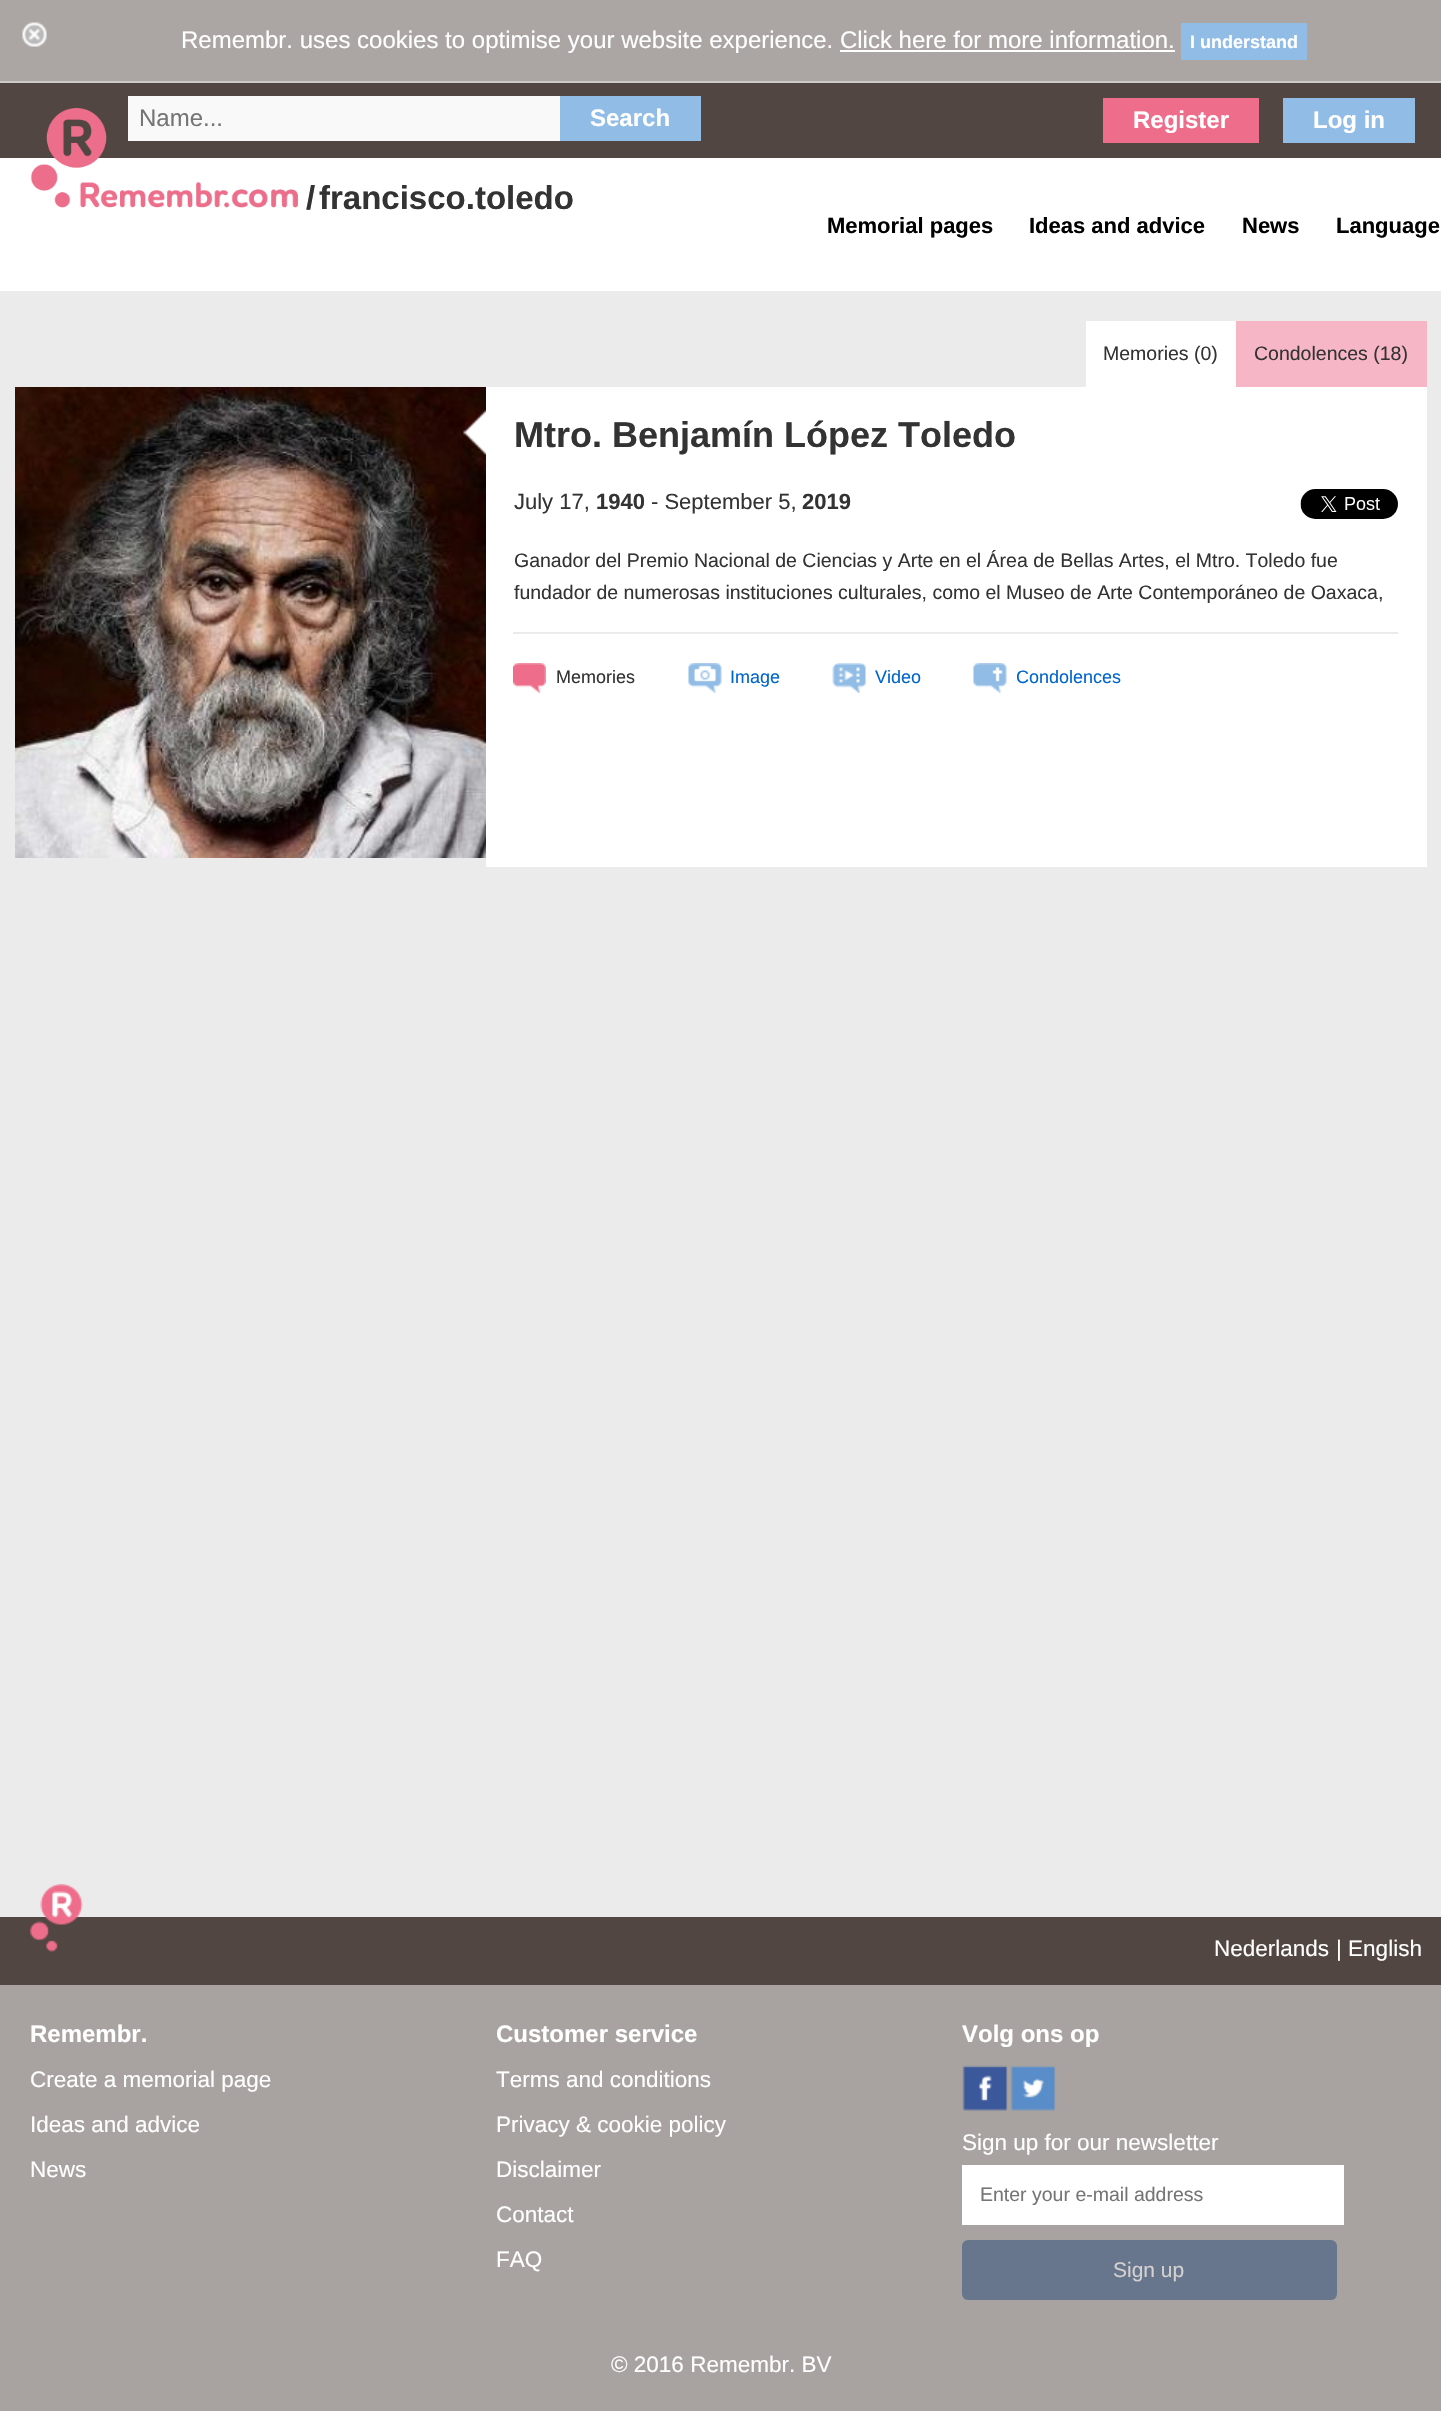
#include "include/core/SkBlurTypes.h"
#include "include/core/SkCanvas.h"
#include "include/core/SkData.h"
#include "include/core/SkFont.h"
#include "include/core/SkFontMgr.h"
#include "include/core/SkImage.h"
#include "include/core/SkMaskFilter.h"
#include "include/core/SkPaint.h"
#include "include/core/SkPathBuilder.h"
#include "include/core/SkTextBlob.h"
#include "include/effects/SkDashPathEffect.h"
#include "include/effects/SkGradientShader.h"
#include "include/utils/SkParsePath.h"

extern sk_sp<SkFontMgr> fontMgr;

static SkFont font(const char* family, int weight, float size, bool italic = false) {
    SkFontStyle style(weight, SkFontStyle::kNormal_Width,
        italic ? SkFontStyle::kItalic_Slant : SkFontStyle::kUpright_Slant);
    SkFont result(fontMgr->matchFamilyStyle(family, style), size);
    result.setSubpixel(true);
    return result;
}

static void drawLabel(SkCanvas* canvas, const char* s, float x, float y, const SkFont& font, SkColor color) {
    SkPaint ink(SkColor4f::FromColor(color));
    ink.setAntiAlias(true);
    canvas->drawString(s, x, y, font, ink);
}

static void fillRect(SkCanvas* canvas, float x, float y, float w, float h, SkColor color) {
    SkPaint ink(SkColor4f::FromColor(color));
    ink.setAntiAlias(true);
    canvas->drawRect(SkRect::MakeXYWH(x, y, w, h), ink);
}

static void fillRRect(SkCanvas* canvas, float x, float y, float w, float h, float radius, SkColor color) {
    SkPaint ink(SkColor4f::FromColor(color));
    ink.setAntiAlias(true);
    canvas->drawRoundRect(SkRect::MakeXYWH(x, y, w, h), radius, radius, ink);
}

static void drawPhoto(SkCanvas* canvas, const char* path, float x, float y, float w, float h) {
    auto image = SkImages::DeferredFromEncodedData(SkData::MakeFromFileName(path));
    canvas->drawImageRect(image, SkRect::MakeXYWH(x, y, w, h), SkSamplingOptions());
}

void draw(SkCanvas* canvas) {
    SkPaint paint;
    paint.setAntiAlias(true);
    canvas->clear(0xFFECEBEB);
    fillRect(canvas, 0, 0, 1441, 81, 0xFFABA6A3);
    fillRect(canvas, 0, 81, 1441, 2, 0xFFCDCAC8);
    drawPhoto(canvas, "assets/img1.png", 22, 22, 25, 25);
    SkFont font1 = font("Liberation Sans", 400, 24);
    drawLabel(canvas, "Remembr. uses cookies to optimise your website experience. Click here for more information.", 181, 48, font1, 0xFFFFFFFF);
    fillRect(canvas, 1181, 23, 126, 37, 0xFF91BCE5);
    SkFont font2 = font("Liberation Sans", 700, 18);
    drawLabel(canvas, "I understand", 1190, 48, font2, 0xFFFFFFFF);
    fillRect(canvas, 840, 50, 335, 2, 0xFFFFFFFF);
    fillRect(canvas, 0, 83, 1441, 75, 0xFF514641);
    fillRect(canvas, 0, 158, 1441, 133, 0xFFFFFFFF);
    drawPhoto(canvas, "assets/img2.png", 30, 107, 268, 101);
    fillRect(canvas, 128, 96, 432, 45, 0xFFF9F9F9);
    drawLabel(canvas, "Name...", 139, 126, font1, 0xFF757575);
    fillRect(canvas, 560, 96, 141, 45, 0xFF91BCE5);
    SkFont font3 = font("Liberation Sans", 700, 24);
    drawLabel(canvas, "Search", 590, 126, font3, 0xFFFFFFFF);
    fillRect(canvas, 1103, 98, 156, 45, 0xFFED6D8A);
    drawLabel(canvas, "Register", 1133, 128, font3, 0xFFFFFFFF);
    fillRect(canvas, 1283, 98, 132, 45, 0xFF91BCE5);
    drawLabel(canvas, "Log in", 1313, 128, font3, 0xFFFFFFFF);
    SkFont font4 = font("Liberation Sans", 700, 33);
    drawLabel(canvas, "/", 306, 209, font4, 0xFF333333);
    drawLabel(canvas, "francisco.toledo", 319, 209, font4, 0xFF333333);
    SkFont font5 = font("Liberation Sans", 700, 22);
    drawLabel(canvas, "Memorial pages", 827, 233, font5, 0xFF000000);
    drawLabel(canvas, "Ideas and advice", 1029, 233, font5, 0xFF000000);
    drawLabel(canvas, "News", 1242, 233, font5, 0xFF000000);
    drawLabel(canvas, "Language", 1336, 233, font5, 0xFF000000);
    fillRect(canvas, 1086, 321, 150, 66, 0xFFFFFFFF);
    SkFont font6 = font("Liberation Sans", 400, 19.5f);
    drawLabel(canvas, "Memories (0)", 1103, 360, font6, 0xFF333333);
    fillRect(canvas, 1236, 321, 191, 66, 0xFFF6B6C5);
    drawLabel(canvas, "Condolences (18)", 1254, 360, font6, 0xFF333333);
    drawPhoto(canvas, "assets/img3.png", 15, 387, 471, 471);
    fillRect(canvas, 486, 387, 941, 480, 0xFFFFFFFF);
    drawPhoto(canvas, "assets/img4.png", 463, 409, 23, 46);
    fillRect(canvas, 513, 632, 885, 2, 0xFFECEBEB);
    SkFont font7 = font("Liberation Sans", 700, 36);
    drawLabel(canvas, "Mtro. Benjamín López Toledo", 514, 447, font7, 0xFF333333);
    SkFont font8 = font("Liberation Sans", 400, 22);
    drawLabel(canvas, "July 17,", 514, 509, font8, 0xFF333333);
    drawLabel(canvas, "1940", 596, 509, font5, 0xFF333333);
    drawLabel(canvas, "- September 5,", 651, 509, font8, 0xFF333333);
    drawLabel(canvas, "2019", 802, 509, font5, 0xFF333333);
    drawPhoto(canvas, "assets/img5.png", 1300, 489, 98, 30);
    drawLabel(canvas, "Ganador del Premio Nacional de Ciencias y Arte en el Área de Bellas Artes, el Mtro. Toledo fue", 514, 567, font6, 0xFF333333);
    drawLabel(canvas, "fundador de numerosas instituciones culturales, como el Museo de Arte Contemporáneo de Oaxaca,", 514, 599, font6, 0xFF333333);
    drawPhoto(canvas, "assets/img6.png", 513, 663, 33, 30);
    SkFont font9 = font("Liberation Sans", 400, 18);
    drawLabel(canvas, "Memories", 556, 683, font9, 0xFF333333);
    drawPhoto(canvas, "assets/img7.png", 688, 663, 34, 30);
    drawLabel(canvas, "Image", 730, 683, font9, 0xFF0066CC);
    drawPhoto(canvas, "assets/img8.png", 832, 663, 34, 30);
    drawLabel(canvas, "Video", 875, 683, font9, 0xFF0066CC);
    drawPhoto(canvas, "assets/img9.png", 973, 663, 34, 30);
    drawLabel(canvas, "Condolences", 1016, 683, font9, 0xFF0066CC);
    fillRect(canvas, 0, 1985, 1441, 426, 0xFFA8A3A0);
    fillRect(canvas, 0, 1917, 1441, 68, 0xFF514642);
    SkFont font10 = font("Liberation Sans", 400, 22.5f);
    drawLabel(canvas, "Nederlands", 1214, 1956, font10, 0xFFFFFFFF);
    drawLabel(canvas, "| English", 1336, 1956, font10, 0xFFFFFFFF);
    drawPhoto(canvas, "assets/img10.png", 30, 1884, 53, 68);
    drawLabel(canvas, "Remembr.", 30, 2042, font3, 0xFFFFFFFF);
    drawLabel(canvas, "Create a memorial page", 30, 2087, font10, 0xFFFFFFFF);
    drawLabel(canvas, "Ideas and advice", 30, 2132, font10, 0xFFFFFFFF);
    drawLabel(canvas, "News", 30, 2177, font10, 0xFFFFFFFF);
    drawLabel(canvas, "Customer service", 496, 2042, font3, 0xFFFFFFFF);
    drawLabel(canvas, "Terms and conditions", 496, 2087, font10, 0xFFFFFFFF);
    drawLabel(canvas, "Privacy & cookie policy", 496, 2132, font10, 0xFFFFFFFF);
    drawLabel(canvas, "Disclaimer", 496, 2177, font10, 0xFFFFFFFF);
    drawLabel(canvas, "Contact", 496, 2222, font10, 0xFFFFFFFF);
    drawLabel(canvas, "FAQ", 496, 2267, font10, 0xFFFFFFFF);
    drawLabel(canvas, "Volg ons op", 962, 2042, font3, 0xFFFFFFFF);
    drawPhoto(canvas, "assets/img11.png", 962, 2065, 46, 46);
    drawPhoto(canvas, "assets/img12.png", 1010, 2065, 46, 46);
    drawLabel(canvas, "Sign up for our newsletter", 962, 2150, font10, 0xFFFFFFFF);
    fillRect(canvas, 962, 2165, 382, 60, 0xFFFFFFFF);
    drawLabel(canvas, "Enter your e-mail address", 980, 2201, font6, 0xFF757575);
    fillRRect(canvas, 962, 2240, 375, 60, 6, 0xFF68768D);
    SkFont font11 = font("Liberation Sans", 400, 21);
    drawLabel(canvas, "Sign up", 1113, 2277, font11, 0xFFD4D1D0);
    drawLabel(canvas, "© 2016 Remembr. BV", 611, 2372, font10, 0xFFFFFFFF);
}
